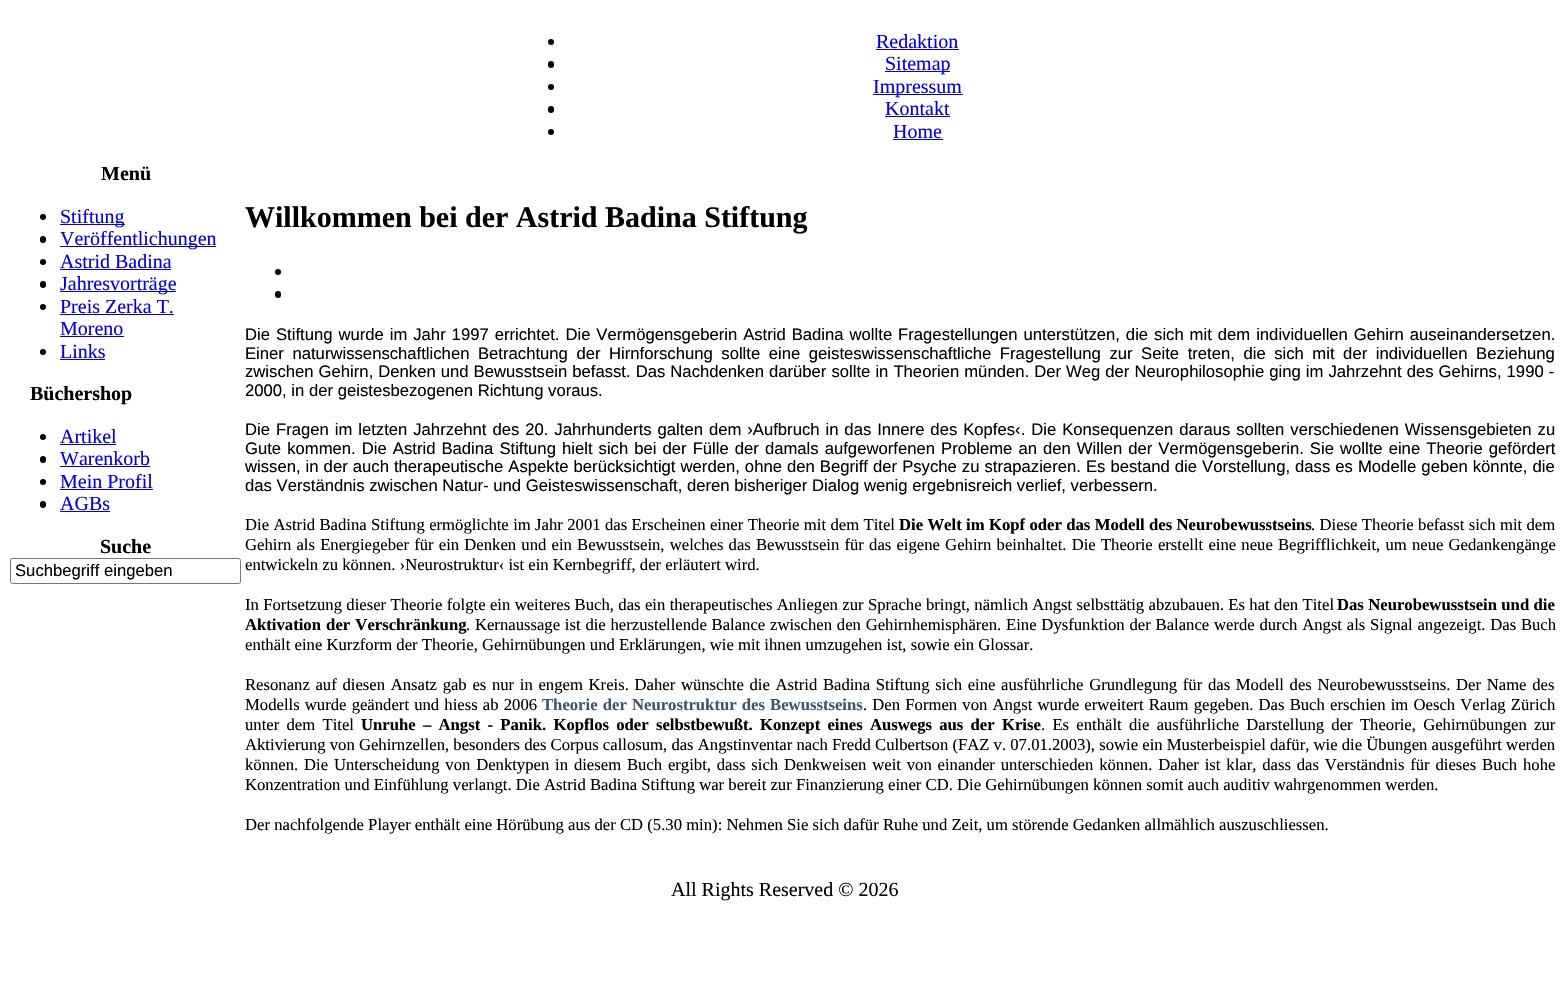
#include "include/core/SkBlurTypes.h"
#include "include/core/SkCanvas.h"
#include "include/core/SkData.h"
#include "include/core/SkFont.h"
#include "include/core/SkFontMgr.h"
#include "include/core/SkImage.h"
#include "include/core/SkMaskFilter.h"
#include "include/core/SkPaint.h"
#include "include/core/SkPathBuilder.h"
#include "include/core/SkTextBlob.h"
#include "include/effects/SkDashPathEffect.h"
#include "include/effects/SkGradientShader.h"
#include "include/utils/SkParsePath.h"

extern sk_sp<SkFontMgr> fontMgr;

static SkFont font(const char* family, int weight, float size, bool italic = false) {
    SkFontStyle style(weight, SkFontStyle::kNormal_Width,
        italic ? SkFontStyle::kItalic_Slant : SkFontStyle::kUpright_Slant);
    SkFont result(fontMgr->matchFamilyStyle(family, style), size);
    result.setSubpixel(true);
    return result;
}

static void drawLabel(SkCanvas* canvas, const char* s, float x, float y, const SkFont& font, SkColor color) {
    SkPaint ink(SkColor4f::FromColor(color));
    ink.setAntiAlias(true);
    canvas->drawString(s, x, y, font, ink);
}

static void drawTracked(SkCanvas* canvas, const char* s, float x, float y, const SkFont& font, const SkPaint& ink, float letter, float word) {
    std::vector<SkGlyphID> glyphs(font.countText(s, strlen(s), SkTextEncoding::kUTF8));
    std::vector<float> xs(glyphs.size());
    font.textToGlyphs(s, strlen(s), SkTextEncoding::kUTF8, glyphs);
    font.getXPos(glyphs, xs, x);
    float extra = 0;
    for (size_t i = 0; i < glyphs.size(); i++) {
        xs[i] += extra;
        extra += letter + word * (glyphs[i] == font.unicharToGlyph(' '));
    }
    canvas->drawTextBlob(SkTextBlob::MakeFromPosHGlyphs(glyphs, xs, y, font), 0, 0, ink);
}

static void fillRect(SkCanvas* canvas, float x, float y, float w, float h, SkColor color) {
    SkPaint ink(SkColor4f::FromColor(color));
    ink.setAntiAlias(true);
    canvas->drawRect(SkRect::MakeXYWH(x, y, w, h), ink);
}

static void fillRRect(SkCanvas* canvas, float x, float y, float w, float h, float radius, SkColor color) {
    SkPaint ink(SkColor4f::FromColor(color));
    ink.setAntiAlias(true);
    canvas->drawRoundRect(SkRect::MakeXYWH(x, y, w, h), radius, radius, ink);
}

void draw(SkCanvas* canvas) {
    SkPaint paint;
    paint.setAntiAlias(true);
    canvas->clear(0xFFFFFFFF);
    paint.setColor(0xFF000000);
    canvas->drawCircle(551, 42, 3, paint);
    SkFont font1 = font("Liberation Serif", 400, 20);
    drawLabel(canvas, "Redaktion", 876, 48, font1, 0xFF0000EE);
    fillRect(canvas, 876, 49, 83, 1, 0xFF0000EE);
    fillRRect(canvas, 548, 61, 6, 7, 3, 0xFF000000);
    fillRect(canvas, 885, 71, 65, 1, 0xFF0000EE);
    drawLabel(canvas, "Sitemap", 885, 70, font1, 0xFF0000EE);
    canvas->drawCircle(551, 87, 3, paint);
    fillRect(canvas, 873, 94, 90, 1, 0xFF0000EE);
    drawLabel(canvas, "Impressum", 873, 93, font1, 0xFF0000EE);
    fillRRect(canvas, 548, 106, 6, 7, 3, 0xFF000000);
    drawLabel(canvas, "Kontakt", 885, 115, font1, 0xFF0000EE);
    fillRect(canvas, 885, 116, 65, 1, 0xFF0000EE);
    canvas->drawCircle(551, 132, 3, paint);
    drawLabel(canvas, "Home", 893, 138, font1, 0xFF0000EE);
    fillRect(canvas, 893, 139, 50, 1, 0xFF0000EE);
    SkFont font2 = font("Liberation Serif", 700, 20);
    drawLabel(canvas, "Menü", 101, 180, font2, 0xFF000000);
    canvas->drawCircle(43, 217, 3, paint);
    fillRect(canvas, 60, 224, 65, 1, 0xFF0000EE);
    drawLabel(canvas, "Stiftung", 60, 223, font1, 0xFF0000EE);
    fillRRect(canvas, 40, 236, 6, 7, 3, 0xFF000000);
    fillRect(canvas, 60, 246, 156, 1, 0xFF0000EE);
    drawLabel(canvas, "Veröffentlichungen", 60, 245, font1, 0xFF0000EE);
    canvas->drawCircle(43, 262, 3, paint);
    drawLabel(canvas, "Astrid Badina", 60, 268, font1, 0xFF0000EE);
    fillRect(canvas, 60, 269, 111, 1, 0xFF0000EE);
    fillRRect(canvas, 40, 281, 6, 7, 3, 0xFF000000);
    fillRect(canvas, 60, 291, 116, 1, 0xFF0000EE);
    drawLabel(canvas, "Jahresvorträge", 60, 290, font1, 0xFF0000EE);
    canvas->drawCircle(43, 307, 3, paint);
    drawLabel(canvas, "Preis Zerka T.", 60, 313, font1, 0xFF0000EE);
    fillRect(canvas, 60, 314, 114, 1, 0xFF0000EE);
    drawLabel(canvas, "Moreno", 60, 335, font1, 0xFF0000EE);
    fillRect(canvas, 60, 336, 64, 1, 0xFF0000EE);
    canvas->drawCircle(43, 352, 3, paint);
    drawLabel(canvas, "Links", 60, 358, font1, 0xFF0000EE);
    fillRect(canvas, 60, 359, 45, 1, 0xFF0000EE);
    drawLabel(canvas, "Büchershop", 30, 400, font2, 0xFF000000);
    canvas->drawCircle(43, 437, 3, paint);
    drawLabel(canvas, "Artikel", 60, 443, font1, 0xFF0000EE);
    fillRect(canvas, 60, 444, 56, 1, 0xFF0000EE);
    fillRRect(canvas, 40, 456, 6, 7, 3, 0xFF000000);
    drawLabel(canvas, "Warenkorb", 60, 465, font1, 0xFF0000EE);
    fillRect(canvas, 60, 466, 90, 1, 0xFF0000EE);
    canvas->drawCircle(43, 482, 3, paint);
    drawLabel(canvas, "Mein Profil", 60, 488, font1, 0xFF0000EE);
    fillRect(canvas, 60, 489, 93, 1, 0xFF0000EE);
    fillRRect(canvas, 40, 501, 6, 7, 3, 0xFF000000);
    drawLabel(canvas, "AGBs", 60, 510, font1, 0xFF0000EE);
    fillRect(canvas, 60, 511, 50, 1, 0xFF0000EE);
    drawLabel(canvas, "Suche", 100, 553, font2, 0xFF000000);
    paint.setStroke(true);
    paint.setStrokeWidth(1);
    paint.setColor(0xFF767676);
    canvas->drawRoundRect(SkRect::MakeXYWH(10.5f, 558.5f, 230, 25), 2, 2, paint);
    SkFont font3 = font("Liberation Sans", 400, 16.67f);
    drawLabel(canvas, "Suchbegriff eingeben", 15, 576, font3, 0xFF000000);
    SkFont font4 = font("Liberation Serif", 700, 30);
    drawLabel(canvas, "Willkommen bei der Astrid Badina Stiftung", 245, 227, font4, 0xFF000000);
    paint.setStroke(false);
    paint.setColor(0xFF000000);
    canvas->drawCircle(278, 272, 3, paint);
    fillRRect(canvas, 275, 291, 6, 7, 3, 0xFF000000);
    drawTracked(canvas, "Die Stiftung wurde im Jahr 1997 errichtet. Die Vermögensgeberin Astrid Badina wollte Fragestellungen unterstützen, die sich mit dem individuellen Gehirn auseinandersetzen.", 245, 340, font3, paint, 0, 1.3f);
    drawTracked(canvas, "Einer naturwissenschaftlichen Betrachtung der Hirnforschung sollte eine geisteswissenschaftliche Fragestellung zur Seite treten, die sich mit der individuellen Beziehung", 245, 359, font3, paint, 0, 3.9f);
    drawTracked(canvas, "zwischen Gehirn, Denken und Bewusstsein befasst. Das Nachdenken darüber sollte in Theorien münden. Der Weg der Neurophilosophie ging im Jahrzehnt des Gehirns, 1990 -", 245, 377, font3, paint, 0, 0.4f);
    drawLabel(canvas, "2000, in der geistesbezogenen Richtung voraus.", 245, 396, font3, 0xFF000000);
    drawTracked(canvas, "Die Fragen im letzten Jahrzehnt des 20. Jahrhunderts galten dem ›Aufbruch in das Innere des Kopfes‹. Die Konsequenzen daraus sollten verschiedenen Wissensgebieten zu", 245, 435, font3, paint, 0, 1.3f);
    drawTracked(canvas, "Gute kommen. Die Astrid Badina Stiftung hielt sich bei der Fülle der damals aufgeworfenen Probleme an den Willen der Vermögensgeberin. Sie wollte eine Theorie gefördert", 245, 454, font3, paint, 0, 1.4f);
    drawTracked(canvas, "wissen, in der auch therapeutische Aspekte berücksichtigt werden, ohne den Begriff der Psyche zu strapazieren. Es bestand die Vorstellung, dass es Modelle geben könnte, die", 245, 472, font3, paint, 0, 0.4f);
    drawLabel(canvas, "das Verständnis zwischen Natur- und Geisteswissenschaft, deren bisheriger Dialog wenig ergebnisreich verlief, verbessern.", 245, 491, font3, 0xFF000000);
    SkFont font5 = font("Liberation Serif", 400, 16.67f);
    drawTracked(canvas, "Die Astrid Badina Stiftung ermöglichte im Jahr 2001 das Erscheinen einer Theorie mit dem Titel", 245, 530, font5, paint, 0, 0.2f);
    SkFont font6 = font("Liberation Serif", 700, 16.67f);
    drawTracked(canvas, "Die Welt im Kopf oder das Modell des Neurobewusstseins", 899, 530, font6, paint, 0, 0.2f);
    drawTracked(canvas, ". Diese Theorie befasst sich mit dem", 1311, 530, font5, paint, 0, 0.2f);
    drawTracked(canvas, "Gehirn als Energiegeber für ein Denken und ein Bewusstsein, welches das Bewusstsein für das eigene Gehirn beinhaltet. Die Theorie erstellt eine neue Begrifflichkeit, um neue Gedankengänge", 245, 550, font5, paint, 0, 1);
    drawLabel(canvas, "entwickeln zu können. ›Neurostruktur‹ ist ein Kernbegriff, der erläutert wird.", 245, 570, font5, 0xFF000000);
    drawTracked(canvas, "In Fortsetzung dieser Theorie folgte ein weiteres Buch, das ein therapeutisches Anliegen zur Sprache bringt, nämlich Angst selbsttätig abzubauen. Es hat den Titel", 245, 610, font5, paint, 0, 0.2f);
    drawTracked(canvas, "Das Neurobewusstsein und die", 1337, 610, font6, paint, 0, 0.2f);
    drawTracked(canvas, "Aktivation der Verschränkung", 245, 630, font6, paint, 0, 1);
    drawTracked(canvas, ". Kernaussage ist die herzustellende Balance zwischen den Gehirnhemisphären. Eine Dysfunktion der Balance werde durch Angst als Signal angezeigt. Das Buch", 466, 630, font5, paint, 0, 0.6f);
    drawLabel(canvas, "enthält eine Kurzform der Theorie, Gehirnübungen und Erklärungen, wie mit ihnen umzugehen ist, sowie ein Glossar.", 245, 650, font5, 0xFF000000);
    drawTracked(canvas, "Resonanz auf diesen Ansatz gab es nur in engem Kreis. Daher wünschte die Astrid Badina Stiftung sich eine ausführliche Grundlegung für das Modell des Neurobewusstseins. Der Name des", 245, 690, font5, paint, 0, 1.5f);
    drawTracked(canvas, "Modells wurde geändert und hiess ab 2006", 245, 710, font5, paint, 0, 1);
    paint.setColor(0xFF3B5576);
    drawTracked(canvas, "Theorie der Neurostruktur des Bewusstseins", 542, 710, font6, paint, 0, 1);
    paint.setColor(0xFF000000);
    drawTracked(canvas, ". Den Formen von Angst wurde erweitert Raum gegeben. Das Buch erschien im Oesch Verlag Zürich", 863, 710, font5, paint, 0, 1);
    drawTracked(canvas, "unter dem Titel", 245, 730, font5, paint, 0, 3.1f);
    drawTracked(canvas, "Unruhe – Angst - Panik. Kopflos oder selbstbewußt. Konzept eines Auswegs aus der Krise", 361, 730, font6, paint, 0, 3.1f);
    drawTracked(canvas, ". Es enthält die ausführliche Darstellung der Theorie, Gehirnübungen zur", 1041, 730, font5, paint, 0, 3.1f);
    drawLabel(canvas, "Aktivierung von Gehirnzellen, besonders des Corpus callosum, das Angstinventar nach Fredd Culbertson (FAZ v. 07.01.2003), sowie ein Musterbeispiel dafür, wie die Übungen ausgeführt werden", 245, 750, font5, 0xFF000000);
    drawTracked(canvas, "können. Die Unterscheidung von Denktypen in diesem Buch ergibt, dass sich Denkweisen weit von einander unterschieden können. Daher ist klar, dass das Verständnis für dieses Buch hohe", 245, 770, font5, paint, 0, 1.65f);
    drawLabel(canvas, "Konzentration und Einfühlung verlangt. Die Astrid Badina Stiftung war bereit zur Finanzierung einer CD. Die Gehirnübungen können somit auch auditiv wahrgenommen werden.", 245, 790, font5, 0xFF000000);
    drawLabel(canvas, "Der nachfolgende Player enthält eine Hörübung aus der CD (5.30 min): Nehmen Sie sich dafür Ruhe und Zeit, um störende Gedanken allmählich auszuschliessen.", 245, 830, font5, 0xFF000000);
    drawLabel(canvas, "All Rights Reserved © 2026", 671, 896, font1, 0xFF000000);
}
